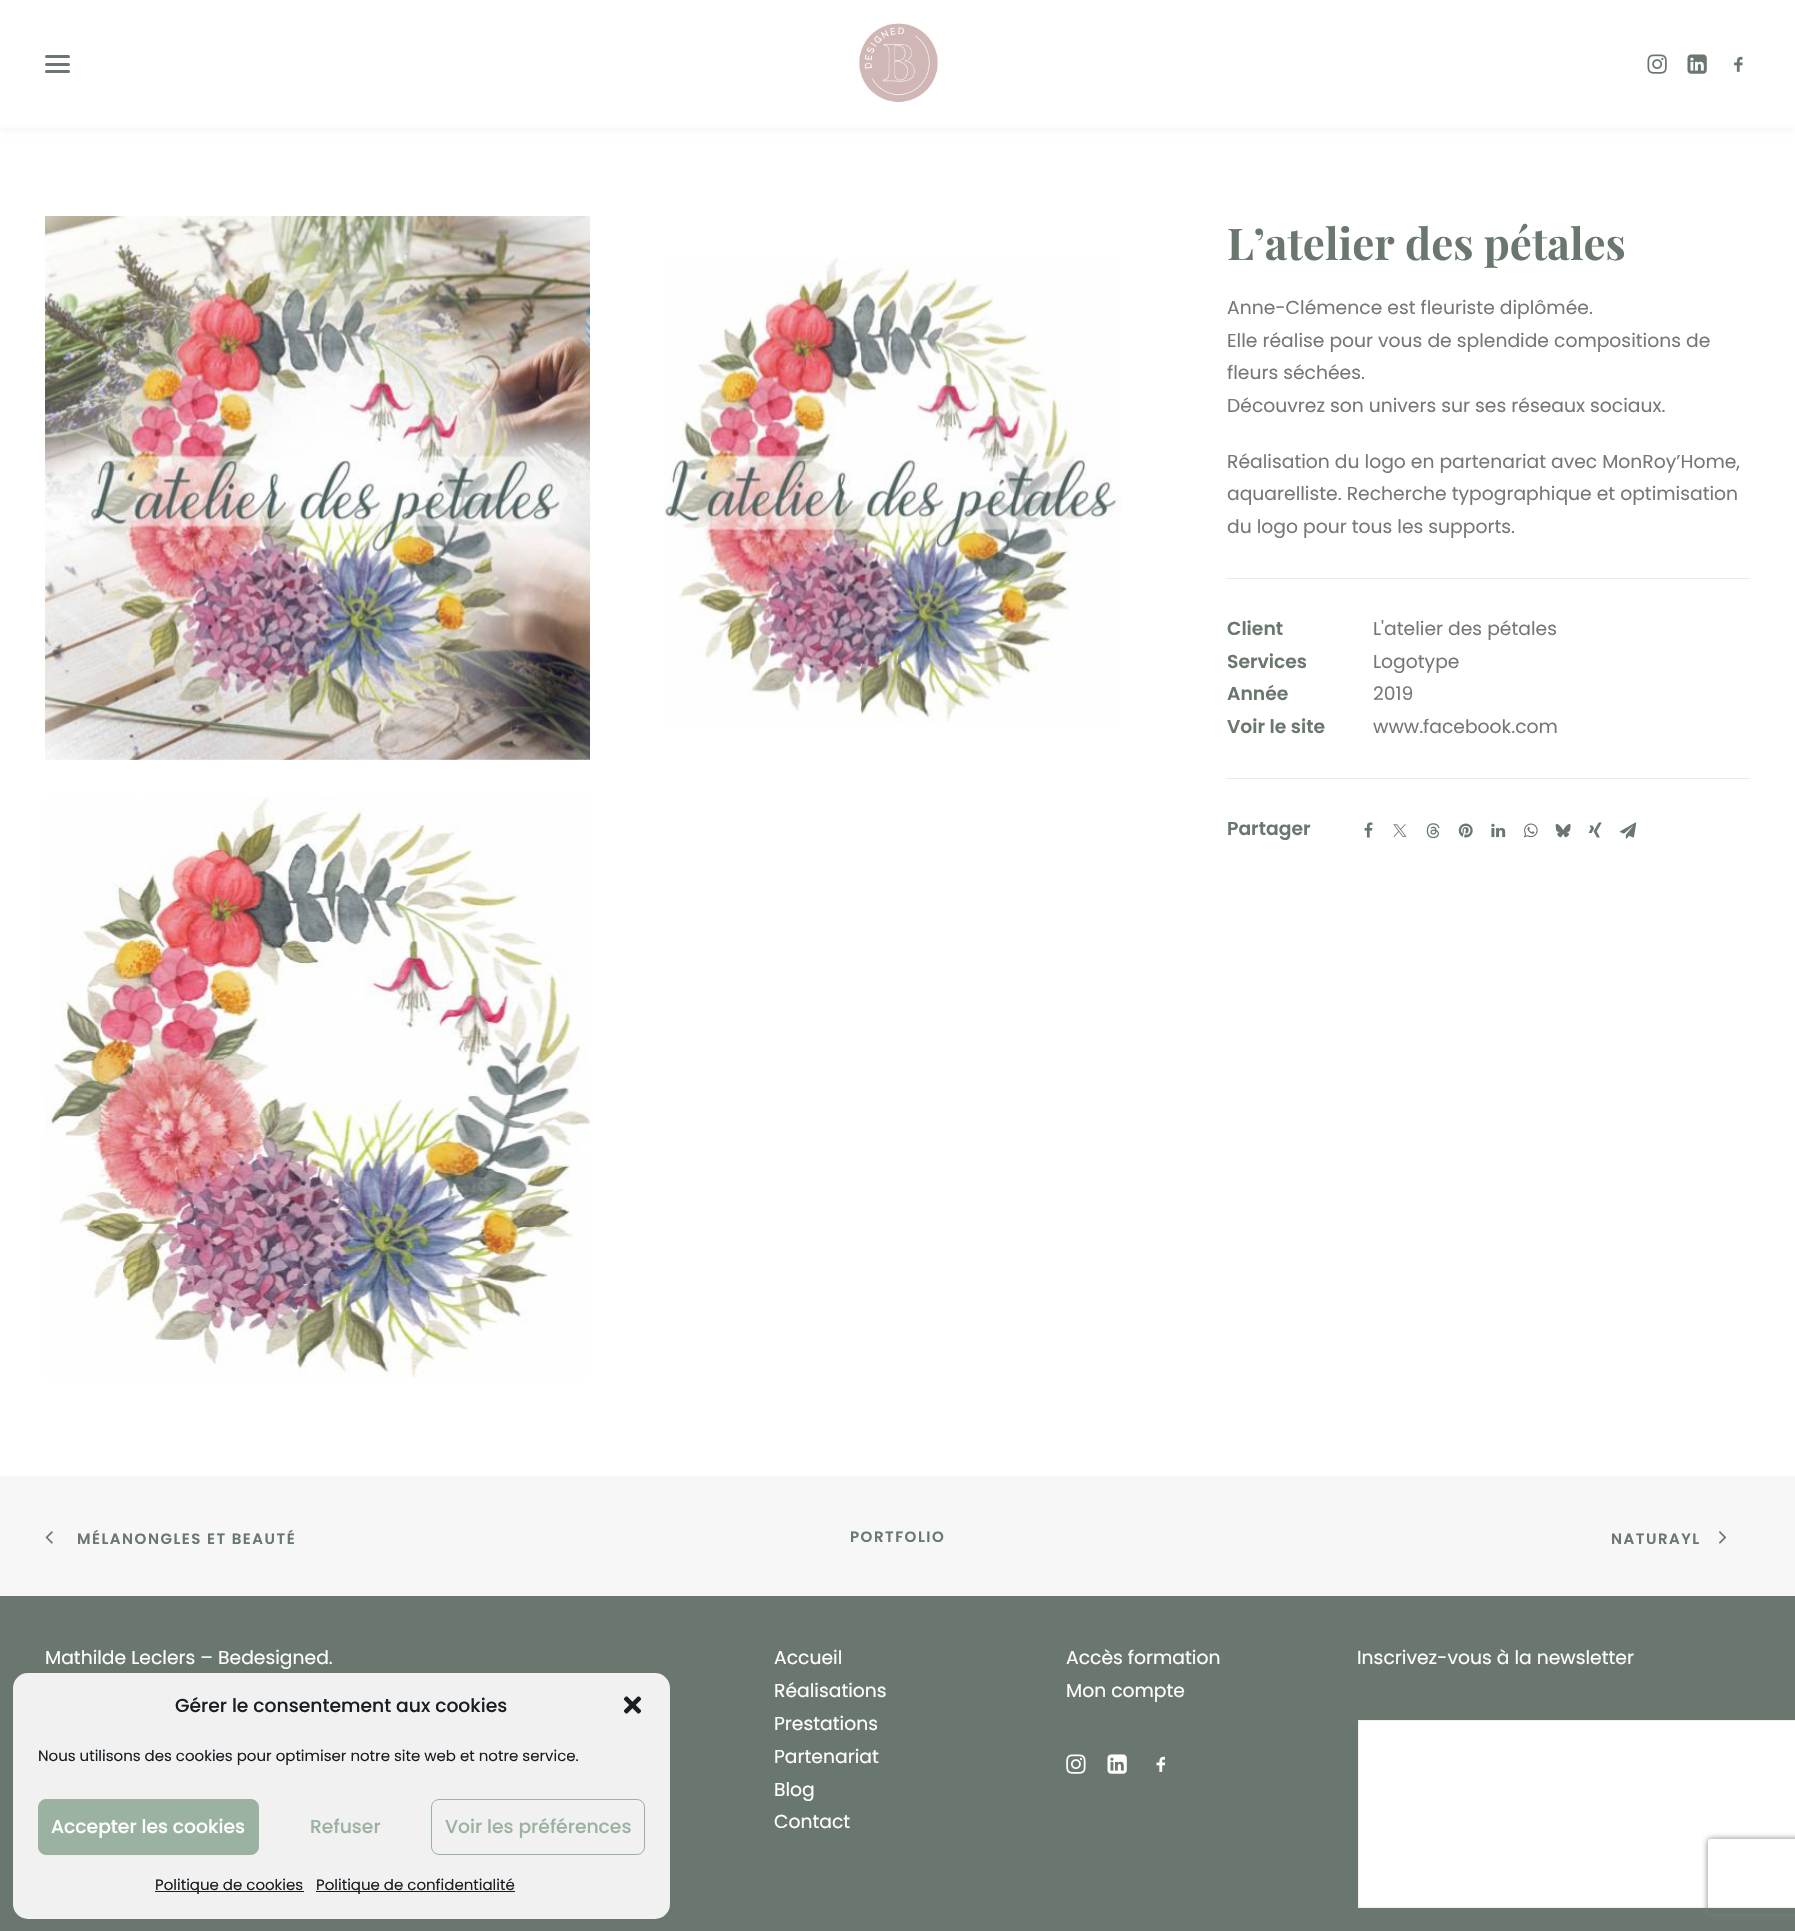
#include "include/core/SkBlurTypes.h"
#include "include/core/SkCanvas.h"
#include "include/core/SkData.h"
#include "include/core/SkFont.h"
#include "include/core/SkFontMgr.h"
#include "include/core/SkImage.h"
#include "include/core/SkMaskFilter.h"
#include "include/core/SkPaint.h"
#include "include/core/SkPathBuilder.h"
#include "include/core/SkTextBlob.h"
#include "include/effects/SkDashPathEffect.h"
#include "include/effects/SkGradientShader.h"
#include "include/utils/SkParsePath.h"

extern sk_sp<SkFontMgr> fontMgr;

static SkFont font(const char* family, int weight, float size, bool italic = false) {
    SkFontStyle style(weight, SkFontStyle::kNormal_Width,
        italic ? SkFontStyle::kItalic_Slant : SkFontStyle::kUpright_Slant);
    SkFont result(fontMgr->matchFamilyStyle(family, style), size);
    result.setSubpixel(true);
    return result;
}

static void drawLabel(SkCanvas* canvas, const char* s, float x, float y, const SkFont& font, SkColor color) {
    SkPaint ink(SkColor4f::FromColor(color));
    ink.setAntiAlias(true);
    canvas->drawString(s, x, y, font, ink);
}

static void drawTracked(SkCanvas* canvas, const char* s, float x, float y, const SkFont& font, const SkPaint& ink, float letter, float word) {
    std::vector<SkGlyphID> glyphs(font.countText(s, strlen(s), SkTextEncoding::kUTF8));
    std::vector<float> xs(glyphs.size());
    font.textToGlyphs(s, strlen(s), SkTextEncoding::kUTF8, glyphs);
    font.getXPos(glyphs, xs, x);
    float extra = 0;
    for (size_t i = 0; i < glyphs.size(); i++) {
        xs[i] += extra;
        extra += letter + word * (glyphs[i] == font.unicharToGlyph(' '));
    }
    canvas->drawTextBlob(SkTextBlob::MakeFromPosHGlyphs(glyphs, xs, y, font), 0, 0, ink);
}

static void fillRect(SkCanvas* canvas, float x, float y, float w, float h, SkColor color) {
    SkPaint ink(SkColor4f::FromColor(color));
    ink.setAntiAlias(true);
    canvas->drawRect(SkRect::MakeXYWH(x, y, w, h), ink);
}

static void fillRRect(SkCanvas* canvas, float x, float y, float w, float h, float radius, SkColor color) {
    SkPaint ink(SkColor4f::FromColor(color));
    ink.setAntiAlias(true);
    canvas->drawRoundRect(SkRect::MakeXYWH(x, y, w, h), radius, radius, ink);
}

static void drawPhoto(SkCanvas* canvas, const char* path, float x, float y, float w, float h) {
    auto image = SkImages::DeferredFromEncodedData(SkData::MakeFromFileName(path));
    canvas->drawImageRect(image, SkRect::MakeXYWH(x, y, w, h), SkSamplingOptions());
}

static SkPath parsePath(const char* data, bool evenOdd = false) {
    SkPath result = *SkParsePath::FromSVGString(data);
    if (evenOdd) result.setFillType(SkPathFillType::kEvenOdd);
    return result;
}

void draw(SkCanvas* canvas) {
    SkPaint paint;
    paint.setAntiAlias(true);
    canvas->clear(0xFFF7F7F7);
    fillRect(canvas, 0, 128, 1795, 1348, 0xFFFFFFFF);
    paint.setColor(0x1A000000);
    paint.setMaskFilter(SkMaskFilter::MakeBlur(kNormal_SkBlurStyle, 4.5f));
    canvas->drawRect(SkRect::MakeXYWH(1, 1, 1793, 125), paint);
    paint.setMaskFilter(nullptr);
    fillRect(canvas, 0, 0, 1795, 128, 0xFFFFFFFF);
    fillRect(canvas, 0, 126, 1795, 1, 0xFFFBFBFB);
    fillRRect(canvas, 45, 63, 25, 3, 1.5f, 0xFF6A776E);
    fillRRect(canvas, 45, 55, 25, 3, 1.5f, 0xFF6A776E);
    fillRRect(canvas, 45, 70, 25, 3, 1.5f, 0xFF6A776E);
    drawPhoto(canvas, "assets/img1.png", 859, 23, 79, 79);
    drawPhoto(canvas, "assets/img2.png", 1647, 54, 20, 20);
    drawPhoto(canvas, "assets/img3.png", 1687, 54, 20, 20);
    drawPhoto(canvas, "assets/img4.png", 1734, 56, 9, 16);
    drawPhoto(canvas, "assets/img5.png", 45, 216, 545, 544);
    drawPhoto(canvas, "assets/img6.png", 664, 258, 457, 465);
    drawPhoto(canvas, "assets/img7.png", 45, 797, 545, 581);
    SkFont font1 = font("Playfair Display", 700, 43.75f);
    drawLabel(canvas, "L’atelier des pétales", 1227, 260, font1, 0xFF6A776E);
    SkFont font2 = font("Poppins", 400, 18.75f);
    drawLabel(canvas, "Anne-Clémence est fleuriste diplômée.", 1227, 314, font2, 0xFF777777);
    drawLabel(canvas, "Elle réalise pour vous de splendide compositions de", 1227, 347, font2, 0xFF777777);
    drawLabel(canvas, "fleurs séchées.", 1227, 379, font2, 0xFF777777);
    drawLabel(canvas, "Découvrez son univers sur ses réseaux sociaux.", 1227, 412, font2, 0xFF777777);
    drawLabel(canvas, "Réalisation du logo en partenariat avec MonRoy’Home,", 1227, 468, font2, 0xFF777777);
    drawLabel(canvas, "aquarelliste. Recherche typographique et optimisation", 1227, 500, font2, 0xFF777777);
    drawLabel(canvas, "du logo pour tous les supports.", 1227, 533, font2, 0xFF777777);
    fillRect(canvas, 1226, 578, 524, 1, 0xFFEAEAEA);
    SkFont font3 = font("Poppins", 600, 18.75f);
    drawLabel(canvas, "Client", 1227, 635, font3, 0xFF6A776E);
    drawLabel(canvas, "L'atelier des pétales", 1373, 635, font2, 0xFF777777);
    drawLabel(canvas, "Services", 1227, 668, font3, 0xFF6A776E);
    drawLabel(canvas, "Logotype", 1373, 668, font2, 0xFF777777);
    drawLabel(canvas, "Année", 1227, 700, font3, 0xFF6A776E);
    drawLabel(canvas, "2019", 1373, 700, font2, 0xFF777777);
    drawLabel(canvas, "Voir le site", 1227, 733, font3, 0xFF6A776E);
    drawLabel(canvas, "www.facebook.com", 1373, 733, font2, 0xFF777777);
    fillRect(canvas, 1226, 778, 524, 1, 0xFFEAEAEA);
    drawLabel(canvas, "Partager", 1227, 835, font3, 0xFF6A776E);
    drawPhoto(canvas, "assets/img8.png", 1364, 822, 9, 16);
    drawPhoto(canvas, "assets/img9.png", 1393, 824, 14, 13);
    drawPhoto(canvas, "assets/img10.png", 1426, 823, 14, 16);
    drawPhoto(canvas, "assets/img11.png", 1458, 823, 15, 15);
    drawPhoto(canvas, "assets/img12.png", 1491, 823, 15, 15);
    drawPhoto(canvas, "assets/img13.png", 1523, 823, 15, 15);
    drawPhoto(canvas, "assets/img14.png", 1555, 824, 16, 14);
    drawPhoto(canvas, "assets/img15.png", 1588, 822, 14, 16);
    drawPhoto(canvas, "assets/img16.png", 1620, 822, 17, 17);
    drawPhoto(canvas, "assets/img17.png", 45, 1531, 8, 13);
    SkFont font4 = font("Poppins", 600, 15);
    paint.setColor(0xFF6A776E);
    drawTracked(canvas, "MÉLANONGLES ET BEAUTÉ", 77, 1544, font4, paint, 1.5f, 0);
    drawTracked(canvas, "PORTFOLIO", 850, 1542, font4, paint, 1.5f, 0);
    drawTracked(canvas, "NATURAYL", 1611, 1544, font4, paint, 1.5f, 0);
    drawPhoto(canvas, "assets/img18.png", 1719, 1531, 8, 13);
    fillRect(canvas, 0, 1596, 1795, 335, 0xFF6A776E);
    drawLabel(canvas, "Mathilde Leclers – Bedesigned.", 45, 1664, font2, 0xFFFFFFFF);
    drawLabel(canvas, "Accueil", 774, 1664, font2, 0xFFFFFFFF);
    drawLabel(canvas, "Réalisations", 774, 1697, font2, 0xFFFFFFFF);
    drawLabel(canvas, "Prestations", 774, 1730, font2, 0xFFFFFFFF);
    drawLabel(canvas, "Partenariat", 774, 1763, font2, 0xFFFFFFFF);
    drawLabel(canvas, "Blog", 774, 1796, font2, 0xFFFFFFFF);
    drawLabel(canvas, "Contact", 774, 1828, font2, 0xFFFFFFFF);
    drawLabel(canvas, "Accès formation", 1066, 1664, font2, 0xFFFFFFFF);
    drawLabel(canvas, "Mon compte", 1066, 1697, font2, 0xFFFFFFFF);
    drawPhoto(canvas, "assets/img19.png", 1066, 1754, 20, 20);
    drawPhoto(canvas, "assets/img20.png", 1107, 1754, 20, 20);
    drawPhoto(canvas, "assets/img21.png", 1156, 1756, 9, 16);
    drawLabel(canvas, "Inscrivez-vous à la newsletter", 1357, 1664, font2, 0xFFFFFFFF);
    paint.setColor(0xFFFFFFFF);
    canvas->drawRect(SkRect::MakeXYWH(1358.5f, 1720.5f, 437, 187), paint);
    paint.setStroke(true);
    paint.setStrokeWidth(1);
    paint.setColor(0xFFEEEEEE);
    canvas->drawRect(SkRect::MakeXYWH(1358.5f, 1720.5f, 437, 187), paint);
    fillRRect(canvas, 13, 1673, 657, 246, 15, 0xFFF1F1F1);
    SkFont font5 = font("Poppins", 500, 18.75f);
    drawLabel(canvas, "Gérer le consentement aux cookies", 175, 1712, font5, 0xFF191E23);
    drawPhoto(canvas, "assets/img22.png", 623, 1696, 19, 18);
    SkFont font6 = font("Poppins", 400, 15);
    drawLabel(canvas, "Nous utilisons des cookies pour optimiser notre site web et notre service.", 38, 1761, font6, 0xFF191E23);
    paint.setStroke(false);
    paint.setColor(0xFF9BB2A2);
    canvas->drawRoundRect(SkRect::MakeXYWH(38.5f, 1799.5f, 220, 55), 7.5f, 7.5f, paint);
    paint.setStroke(true);
    canvas->drawRoundRect(SkRect::MakeXYWH(38.5f, 1799.5f, 220, 55), 7.5f, 7.5f, paint);
    drawLabel(canvas, "Accepter les cookies", 51, 1833, font5, 0xFFFFFFFF);
    drawLabel(canvas, "Refuser", 310, 1833, font5, 0xFF9BB2A2);
    canvas->drawRoundRect(SkRect::MakeXYWH(431.5f, 1799.5f, 213, 55), 7.5f, 7.5f, paint);
    drawLabel(canvas, "Voir les préférences", 445, 1833, font5, 0xFF9BB2A2);
    fillRect(canvas, 155, 1891, 149, 1, 0xFF191E23);
    drawLabel(canvas, "Politique de cookies", 155, 1890, font6, 0xFF191E23);
    fillRect(canvas, 316, 1891, 199, 1, 0xFF191E23);
    drawLabel(canvas, "Politique de confidentialité", 316, 1890, font6, 0xFF191E23);
    canvas->save();
    canvas->clipPath(parsePath("M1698 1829H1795V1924H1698ZM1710.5 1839H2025.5C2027 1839 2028 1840 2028 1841.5V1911.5C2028 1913 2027 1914 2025.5 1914H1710.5C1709 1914 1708 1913 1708 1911.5V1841.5C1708 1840 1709 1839 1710.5 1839Z", true), true);
    paint.setStroke(false);
    paint.setColor(0xFF808080);
    paint.setMaskFilter(SkMaskFilter::MakeBlur(kNormal_SkBlurStyle, 3));
    canvas->drawRoundRect(SkRect::MakeXYWH(1708, 1839, 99, 75), 2.5f, 2.5f, paint);
    paint.setMaskFilter(nullptr);
    canvas->restore();
}
